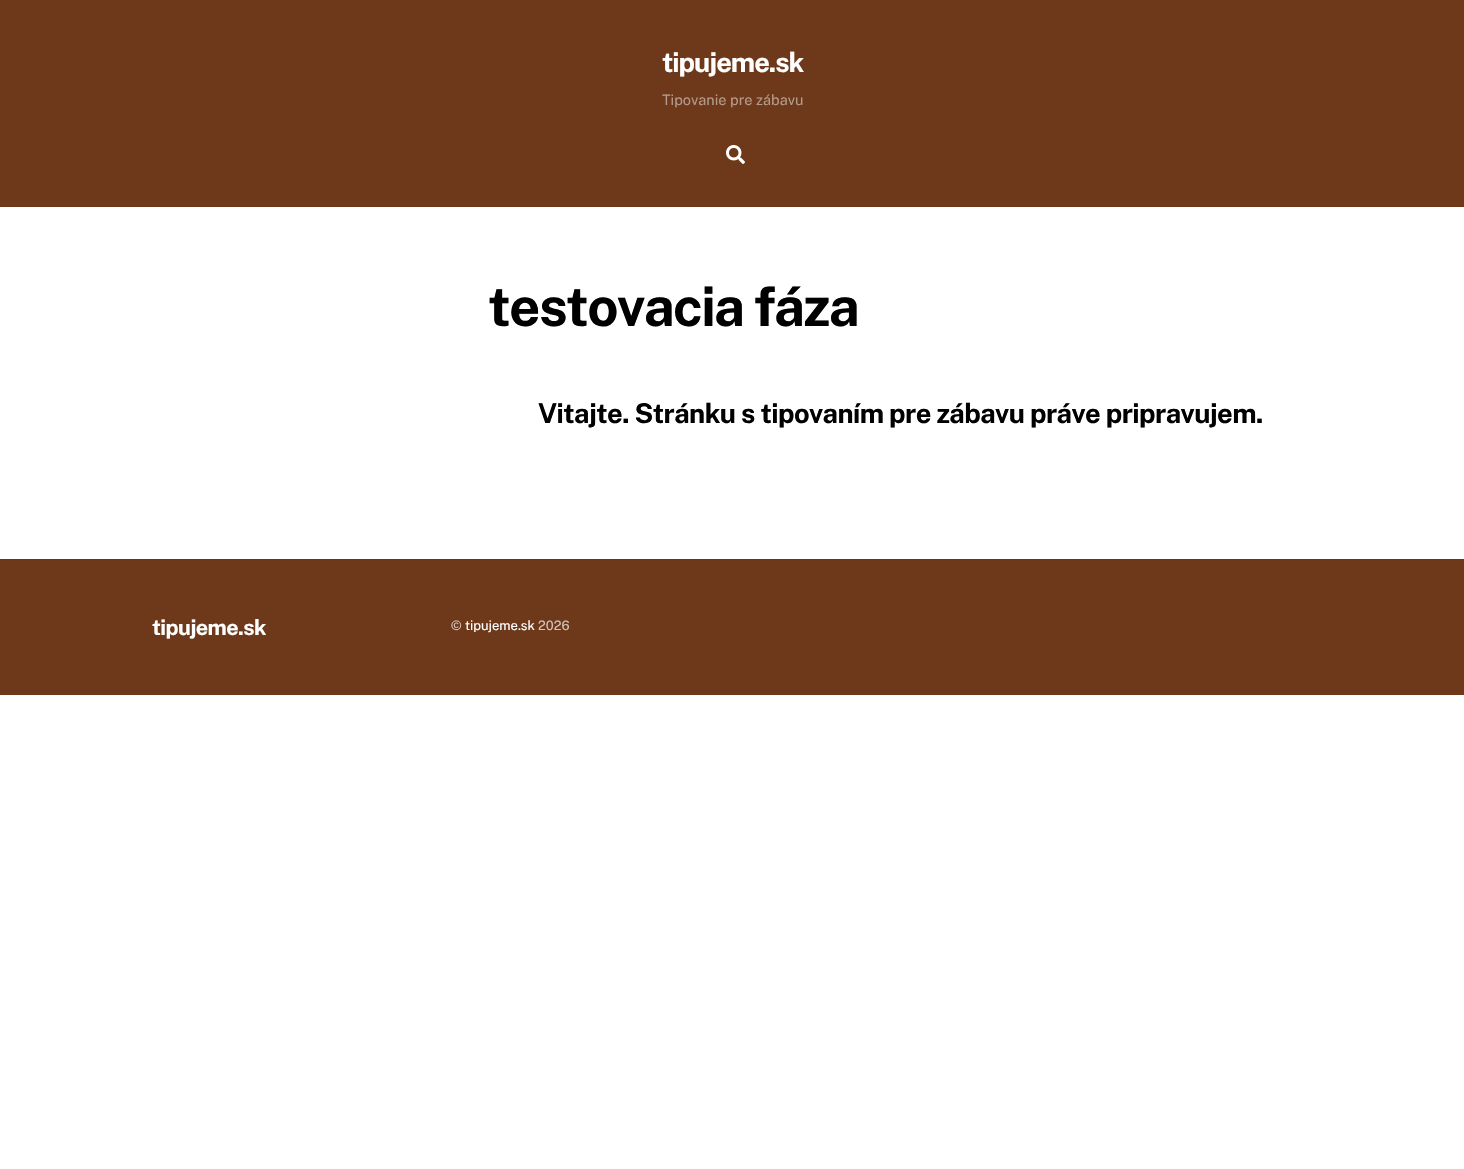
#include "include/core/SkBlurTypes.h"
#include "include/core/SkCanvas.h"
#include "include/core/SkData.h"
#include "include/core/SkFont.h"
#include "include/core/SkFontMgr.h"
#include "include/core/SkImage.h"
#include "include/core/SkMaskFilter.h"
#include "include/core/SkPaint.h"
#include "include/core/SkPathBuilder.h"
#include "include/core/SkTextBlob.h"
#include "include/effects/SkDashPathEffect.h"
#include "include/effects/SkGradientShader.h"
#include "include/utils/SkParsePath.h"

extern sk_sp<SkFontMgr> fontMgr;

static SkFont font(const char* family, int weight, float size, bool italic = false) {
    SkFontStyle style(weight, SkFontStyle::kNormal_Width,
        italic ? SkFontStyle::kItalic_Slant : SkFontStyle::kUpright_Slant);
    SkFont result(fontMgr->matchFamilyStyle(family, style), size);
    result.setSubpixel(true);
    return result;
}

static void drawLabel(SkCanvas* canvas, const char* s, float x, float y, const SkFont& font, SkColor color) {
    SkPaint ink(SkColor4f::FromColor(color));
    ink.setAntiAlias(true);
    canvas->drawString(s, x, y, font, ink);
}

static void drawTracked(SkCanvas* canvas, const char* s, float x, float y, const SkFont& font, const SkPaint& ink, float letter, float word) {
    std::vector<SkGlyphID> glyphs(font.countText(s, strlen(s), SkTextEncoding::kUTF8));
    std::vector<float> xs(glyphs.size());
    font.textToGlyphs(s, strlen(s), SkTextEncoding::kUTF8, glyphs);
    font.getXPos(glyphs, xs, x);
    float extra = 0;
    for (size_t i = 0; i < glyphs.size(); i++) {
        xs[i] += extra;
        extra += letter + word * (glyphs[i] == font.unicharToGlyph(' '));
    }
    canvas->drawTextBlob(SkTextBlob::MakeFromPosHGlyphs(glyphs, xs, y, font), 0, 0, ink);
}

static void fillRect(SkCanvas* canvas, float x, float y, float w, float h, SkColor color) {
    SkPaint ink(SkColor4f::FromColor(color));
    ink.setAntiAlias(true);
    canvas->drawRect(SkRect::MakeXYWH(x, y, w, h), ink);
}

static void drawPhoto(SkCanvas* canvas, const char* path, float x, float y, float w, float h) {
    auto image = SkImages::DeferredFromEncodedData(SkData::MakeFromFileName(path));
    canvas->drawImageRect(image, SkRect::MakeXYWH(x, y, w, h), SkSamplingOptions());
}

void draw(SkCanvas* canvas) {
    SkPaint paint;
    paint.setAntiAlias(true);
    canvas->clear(0xFFFFFFFF);
    fillRect(canvas, 0, 0, 1464, 206, 0xFF6D391A);
    fillRect(canvas, 0, 206, 1464, 1, 0xFF683619);
    SkFont font1 = font("Public Sans", 700, 27.2f);
    paint.setColor(0xFFFFFFFF);
    drawTracked(canvas, "tipujeme.sk", 662, 72, font1, paint, -1, 0);
    SkFont font2 = font("Public Sans", 400, 14.5f);
    drawLabel(canvas, "Tipovanie pre zábavu", 662, 105, font2, 0xFFB49A8A);
    drawPhoto(canvas, "assets/img1.png", 726, 145, 19, 19);
    SkFont font3 = font("Public Sans", 700, 54.5f);
    paint.setColor(0xFF000000);
    drawTracked(canvas, "testovacia fáza", 488, 326, font3, paint, -1.6f, 0);
    drawTracked(canvas, "Vitajte. Stránku s tipovaním pre zábavu práve pripravujem.", 538, 423, font1, paint, -0.55f, 0);
    fillRect(canvas, 0, 560, 1464, 135, 0xFF6D391A);
    fillRect(canvas, 0, 559, 1464, 1, 0xFF683619);
    SkFont font4 = font("Public Sans", 700, 21.5f);
    paint.setColor(0xFFFFFFFF);
    drawTracked(canvas, "tipujeme.sk", 152, 635, font4, paint, -0.6f, 0);
    SkFont font5 = font("Public Sans", 400, 13);
    drawLabel(canvas, "©", 451, 630, font5, 0xFFD3C4BA);
    drawLabel(canvas, "tipujeme.sk", 465, 630, font5, 0xFFFFFFFF);
    drawLabel(canvas, "2026", 538, 630, font5, 0xFFD3C4BA);
}
